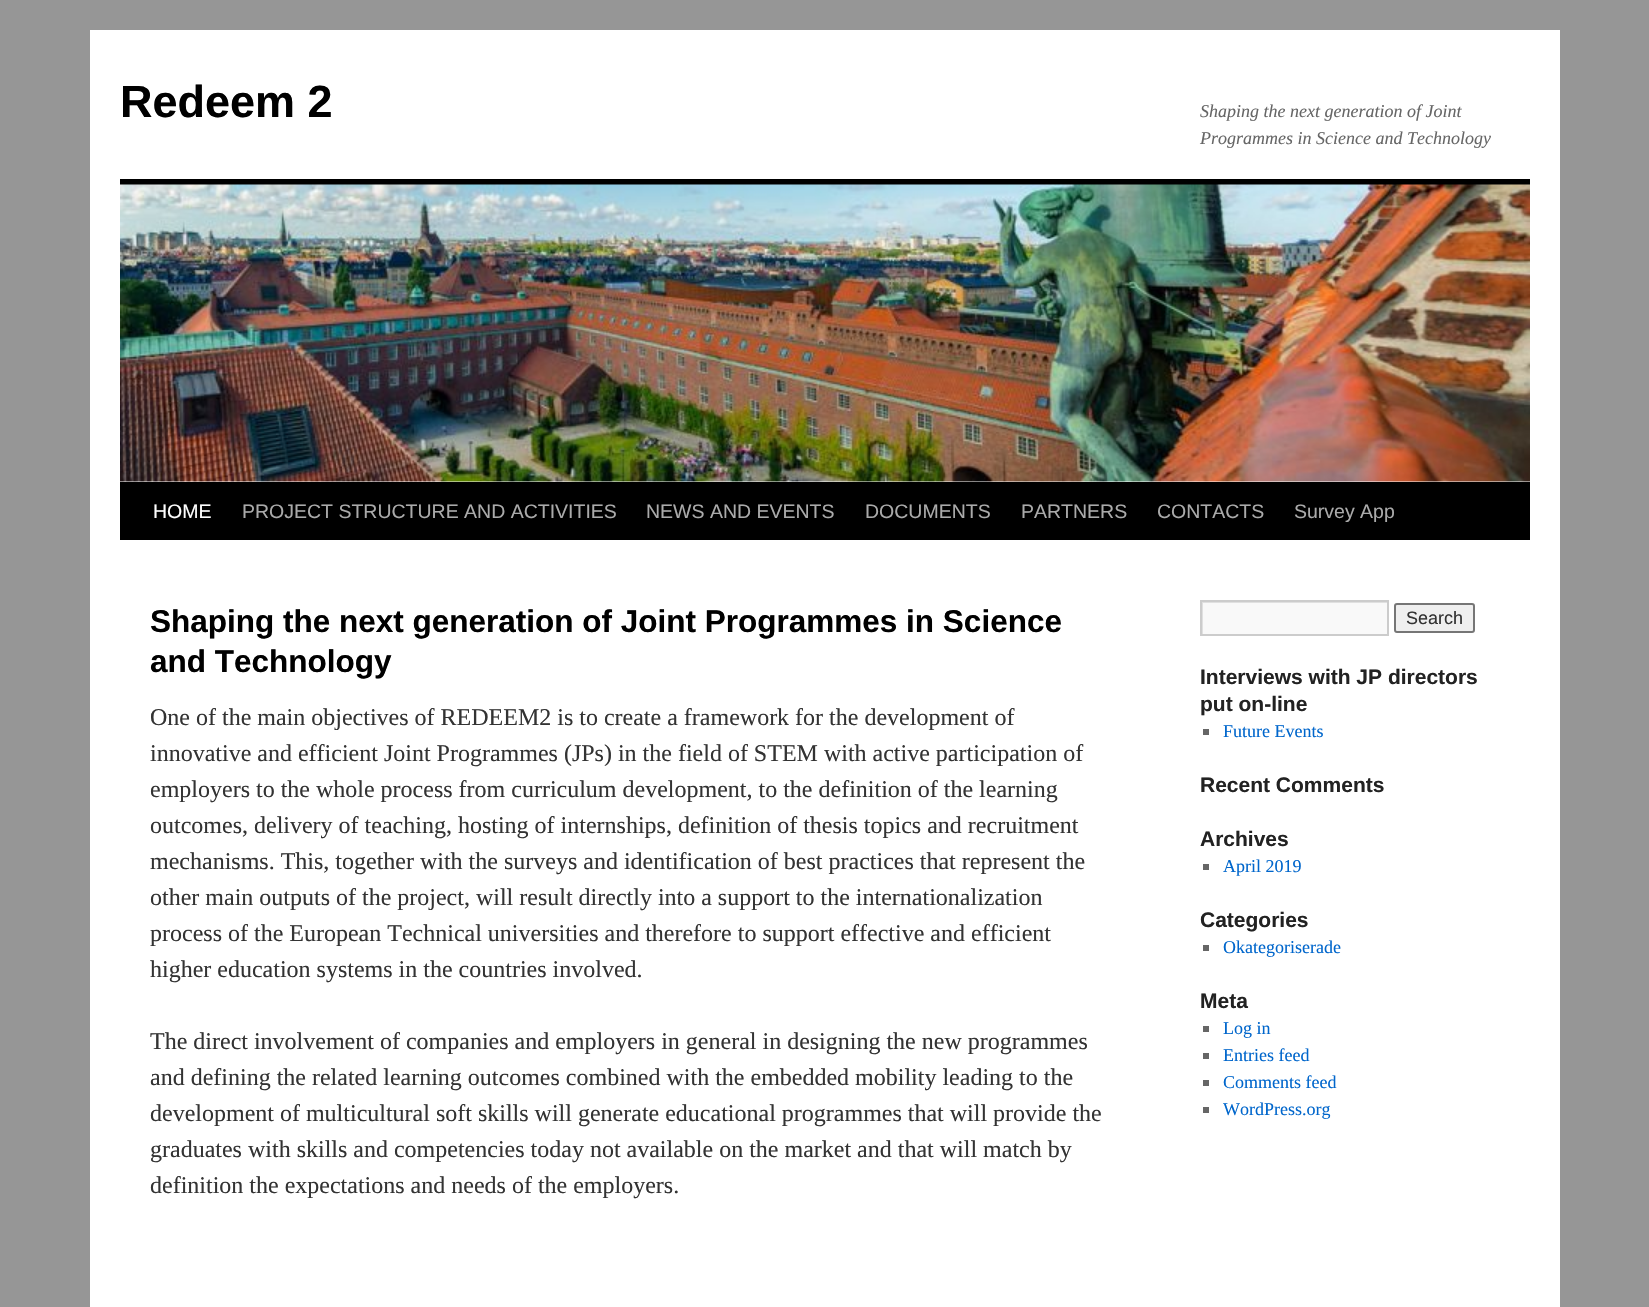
#include "include/core/SkBlurTypes.h"
#include "include/core/SkCanvas.h"
#include "include/core/SkData.h"
#include "include/core/SkFont.h"
#include "include/core/SkFontMgr.h"
#include "include/core/SkImage.h"
#include "include/core/SkMaskFilter.h"
#include "include/core/SkPaint.h"
#include "include/core/SkPathBuilder.h"
#include "include/core/SkTextBlob.h"
#include "include/effects/SkDashPathEffect.h"
#include "include/effects/SkGradientShader.h"
#include "include/utils/SkParsePath.h"

extern sk_sp<SkFontMgr> fontMgr;

static SkFont font(const char* family, int weight, float size, bool italic = false) {
    SkFontStyle style(weight, SkFontStyle::kNormal_Width,
        italic ? SkFontStyle::kItalic_Slant : SkFontStyle::kUpright_Slant);
    SkFont result(fontMgr->matchFamilyStyle(family, style), size);
    result.setSubpixel(true);
    return result;
}

static void drawLabel(SkCanvas* canvas, const char* s, float x, float y, const SkFont& font, SkColor color) {
    SkPaint ink(SkColor4f::FromColor(color));
    ink.setAntiAlias(true);
    canvas->drawString(s, x, y, font, ink);
}

static void fillRect(SkCanvas* canvas, float x, float y, float w, float h, SkColor color) {
    SkPaint ink(SkColor4f::FromColor(color));
    ink.setAntiAlias(true);
    canvas->drawRect(SkRect::MakeXYWH(x, y, w, h), ink);
}

static void drawPhoto(SkCanvas* canvas, const char* path, float x, float y, float w, float h) {
    auto image = SkImages::DeferredFromEncodedData(SkData::MakeFromFileName(path));
    canvas->drawImageRect(image, SkRect::MakeXYWH(x, y, w, h), SkSamplingOptions());
}

static SkPath parsePath(const char* data, bool evenOdd = false) {
    SkPath result = *SkParsePath::FromSVGString(data);
    if (evenOdd) result.setFillType(SkPathFillType::kEvenOdd);
    return result;
}

void draw(SkCanvas* canvas) {
    SkPaint paint;
    paint.setAntiAlias(true);
    canvas->clear(0xFF969696);
    fillRect(canvas, 90, 30, 1470, 1277, 0xFFFFFFFF);
    SkFont font1 = font("Liberation Sans", 700, 45);
    drawLabel(canvas, "Redeem 2", 120, 117, font1, 0xFF000000);
    SkFont font2 = font("Liberation Serif", 400, 18, true);
    drawLabel(canvas, "Shaping the next generation of Joint", 1200, 117, font2, 0xFF666666);
    drawLabel(canvas, "Programmes in Science and Technology", 1200, 144, font2, 0xFF666666);
    fillRect(canvas, 120, 179, 1410, 6, 0xFF000000);
    fillRect(canvas, 120, 482, 1410, 58, 0xFF000000);
    drawPhoto(canvas, "assets/img1.png", 120, 184, 1410, 298);
    SkFont font3 = font("Liberation Sans", 400, 19.5f);
    drawLabel(canvas, "HOME", 153, 518, font3, 0xFFFFFFFF);
    drawLabel(canvas, "PROJECT STRUCTURE AND ACTIVITIES", 242, 518, font3, 0xFFAAAAAA);
    drawLabel(canvas, "NEWS AND EVENTS", 646, 518, font3, 0xFFAAAAAA);
    drawLabel(canvas, "DOCUMENTS", 865, 518, font3, 0xFFAAAAAA);
    drawLabel(canvas, "PARTNERS", 1021, 518, font3, 0xFFAAAAAA);
    drawLabel(canvas, "CONTACTS", 1157, 518, font3, 0xFFAAAAAA);
    drawLabel(canvas, "Survey App", 1294, 518, font3, 0xFFAAAAAA);
    SkFont font4 = font("Liberation Sans", 700, 31.5f);
    drawLabel(canvas, "Shaping the next generation of Joint Programmes in Science", 150, 632, font4, 0xFF000000);
    drawLabel(canvas, "and Technology", 150, 672, font4, 0xFF000000);
    SkFont font5 = font("Liberation Serif", 400, 24);
    drawLabel(canvas, "One of the main objectives of REDEEM2 is to create a framework for the development of", 150, 725, font5, 0xFF333333);
    drawLabel(canvas, "innovative and efficient Joint Programmes (JPs) in the field of STEM with active participation of", 150, 761, font5, 0xFF333333);
    drawLabel(canvas, "employers to the whole process from curriculum development, to the definition of the learning", 150, 797, font5, 0xFF333333);
    drawLabel(canvas, "outcomes, delivery of teaching, hosting of internships, definition of thesis topics and recruitment", 150, 833, font5, 0xFF333333);
    drawLabel(canvas, "mechanisms. This, together with the surveys and identification of best practices that represent the", 150, 869, font5, 0xFF333333);
    drawLabel(canvas, "other main outputs of the project, will result directly into a support to the internationalization", 150, 905, font5, 0xFF333333);
    drawLabel(canvas, "process of the European Technical universities and therefore to support effective and efficient", 150, 941, font5, 0xFF333333);
    drawLabel(canvas, "higher education systems in the countries involved.", 150, 977, font5, 0xFF333333);
    drawLabel(canvas, "The direct involvement of companies and employers in general in designing the new programmes", 150, 1049, font5, 0xFF333333);
    drawLabel(canvas, "and defining the related learning outcomes combined with the embedded mobility leading to the", 150, 1085, font5, 0xFF333333);
    drawLabel(canvas, "development of multicultural soft skills will generate educational programmes that will provide the", 150, 1121, font5, 0xFF333333);
    drawLabel(canvas, "graduates with skills and competencies today not available on the market and that will match by", 150, 1157, font5, 0xFF333333);
    drawLabel(canvas, "definition the expectations and needs of the employers.", 150, 1193, font5, 0xFF333333);
    fillRect(canvas, 1203, 603, 184, 31, 0xFFF9F9F9);
    canvas->save();
    canvas->clipRect(SkRect::MakeXYWH(1202, 602, 186, 33));
    paint.setColor(0xFFE0E0E0);
    canvas->drawPath(parsePath("M1053 453H1536V783H1053ZM1203 603H1389V636H1203Z", true), paint);
    canvas->restore();
    paint.setStroke(true);
    paint.setStrokeWidth(2);
    paint.setColor(0xFFCCCCCC);
    canvas->drawRect(SkRect::MakeXYWH(1201, 601, 187, 34), paint);
    paint.setStroke(false);
    paint.setColor(0xFFEFEFEF);
    canvas->drawRoundRect(SkRect::MakeXYWH(1395, 604, 79, 28), 2, 2, paint);
    paint.setStroke(true);
    paint.setColor(0xFF767676);
    canvas->drawRoundRect(SkRect::MakeXYWH(1395, 604, 79, 28), 2, 2, paint);
    SkFont font6 = font("Liberation Sans", 400, 18);
    drawLabel(canvas, "Search", 1406, 624, font6, 0xFF333333);
    SkFont font7 = font("Liberation Sans", 700, 21);
    drawLabel(canvas, "Interviews with JP directors", 1200, 684, font7, 0xFF222222);
    drawLabel(canvas, "put on-line", 1200, 711, font7, 0xFF222222);
    fillRect(canvas, 1203, 729, 6, 6, 0xFF666666);
    SkFont font8 = font("Liberation Serif", 400, 18);
    drawLabel(canvas, "Future Events", 1223, 737, font8, 0xFF0066CC);
    drawLabel(canvas, "Recent Comments", 1200, 792, font7, 0xFF222222);
    drawLabel(canvas, "Archives", 1200, 846, font7, 0xFF222222);
    fillRect(canvas, 1203, 864, 6, 6, 0xFF666666);
    drawLabel(canvas, "April 2019", 1223, 872, font8, 0xFF0066CC);
    drawLabel(canvas, "Categories", 1200, 927, font7, 0xFF222222);
    fillRect(canvas, 1203, 945, 6, 6, 0xFF666666);
    drawLabel(canvas, "Okategoriserade", 1223, 953, font8, 0xFF0066CC);
    drawLabel(canvas, "Meta", 1200, 1008, font7, 0xFF222222);
    fillRect(canvas, 1203, 1026, 6, 6, 0xFF666666);
    drawLabel(canvas, "Log in", 1223, 1034, font8, 0xFF0066CC);
    fillRect(canvas, 1203, 1053, 6, 6, 0xFF666666);
    drawLabel(canvas, "Entries feed", 1223, 1061, font8, 0xFF0066CC);
    fillRect(canvas, 1203, 1080, 6, 6, 0xFF666666);
    drawLabel(canvas, "Comments feed", 1223, 1088, font8, 0xFF0066CC);
    fillRect(canvas, 1203, 1107, 6, 6, 0xFF666666);
    drawLabel(canvas, "WordPress.org", 1223, 1115, font8, 0xFF0066CC);
}
